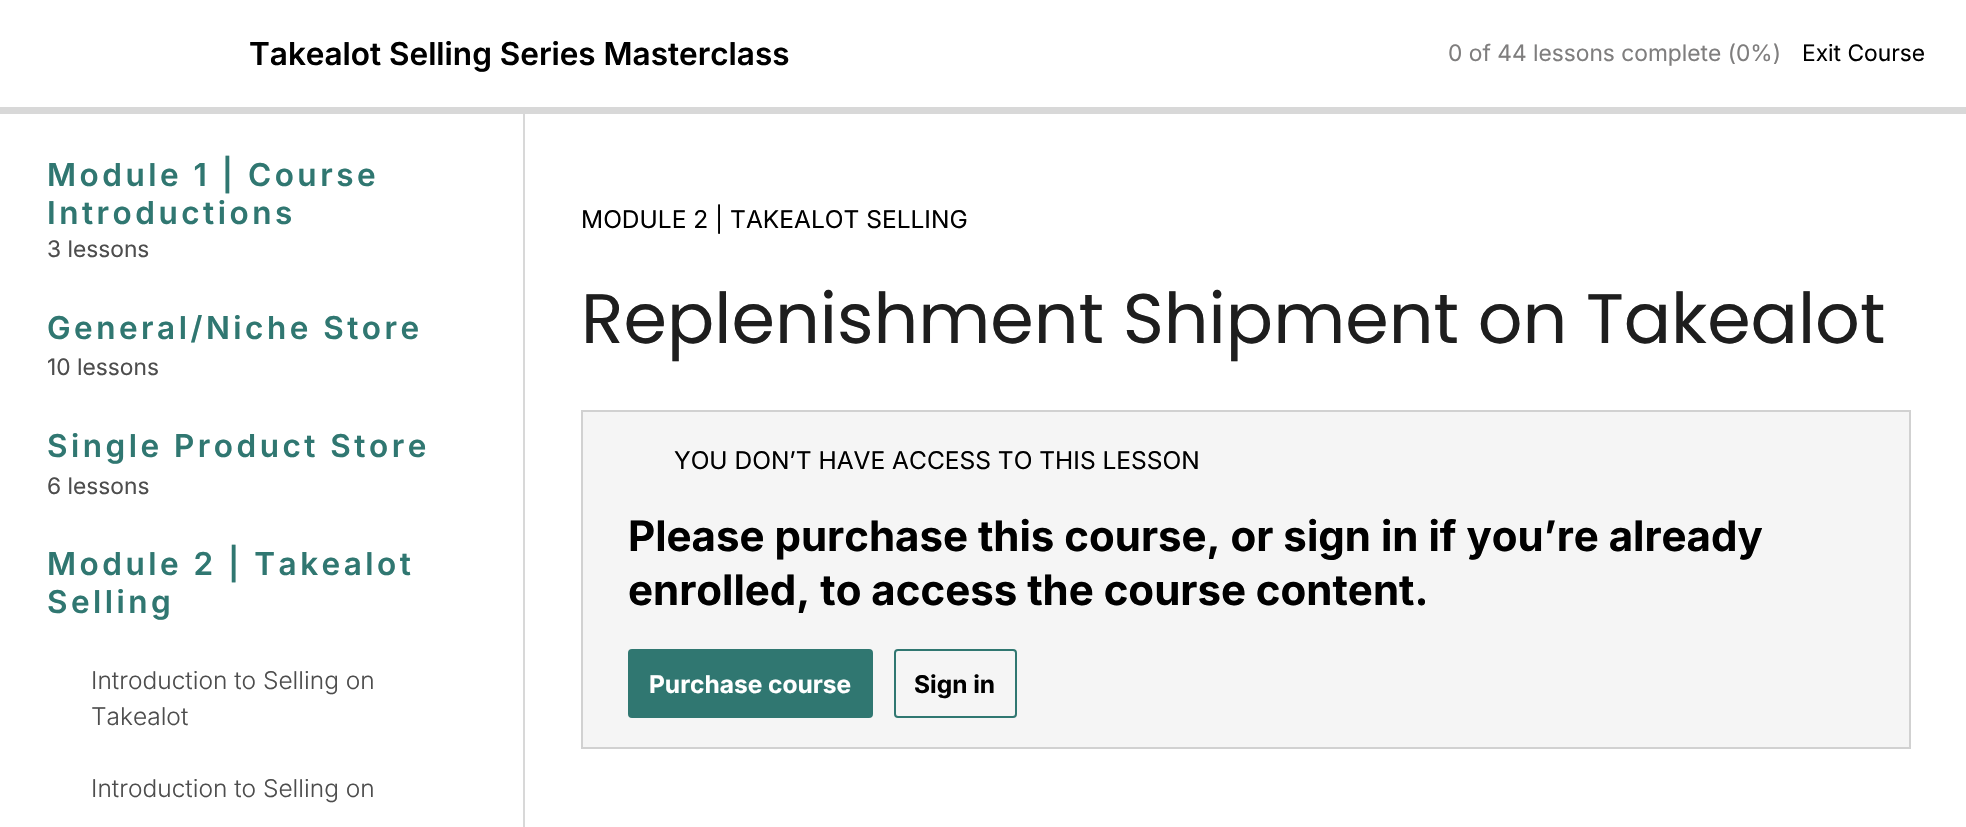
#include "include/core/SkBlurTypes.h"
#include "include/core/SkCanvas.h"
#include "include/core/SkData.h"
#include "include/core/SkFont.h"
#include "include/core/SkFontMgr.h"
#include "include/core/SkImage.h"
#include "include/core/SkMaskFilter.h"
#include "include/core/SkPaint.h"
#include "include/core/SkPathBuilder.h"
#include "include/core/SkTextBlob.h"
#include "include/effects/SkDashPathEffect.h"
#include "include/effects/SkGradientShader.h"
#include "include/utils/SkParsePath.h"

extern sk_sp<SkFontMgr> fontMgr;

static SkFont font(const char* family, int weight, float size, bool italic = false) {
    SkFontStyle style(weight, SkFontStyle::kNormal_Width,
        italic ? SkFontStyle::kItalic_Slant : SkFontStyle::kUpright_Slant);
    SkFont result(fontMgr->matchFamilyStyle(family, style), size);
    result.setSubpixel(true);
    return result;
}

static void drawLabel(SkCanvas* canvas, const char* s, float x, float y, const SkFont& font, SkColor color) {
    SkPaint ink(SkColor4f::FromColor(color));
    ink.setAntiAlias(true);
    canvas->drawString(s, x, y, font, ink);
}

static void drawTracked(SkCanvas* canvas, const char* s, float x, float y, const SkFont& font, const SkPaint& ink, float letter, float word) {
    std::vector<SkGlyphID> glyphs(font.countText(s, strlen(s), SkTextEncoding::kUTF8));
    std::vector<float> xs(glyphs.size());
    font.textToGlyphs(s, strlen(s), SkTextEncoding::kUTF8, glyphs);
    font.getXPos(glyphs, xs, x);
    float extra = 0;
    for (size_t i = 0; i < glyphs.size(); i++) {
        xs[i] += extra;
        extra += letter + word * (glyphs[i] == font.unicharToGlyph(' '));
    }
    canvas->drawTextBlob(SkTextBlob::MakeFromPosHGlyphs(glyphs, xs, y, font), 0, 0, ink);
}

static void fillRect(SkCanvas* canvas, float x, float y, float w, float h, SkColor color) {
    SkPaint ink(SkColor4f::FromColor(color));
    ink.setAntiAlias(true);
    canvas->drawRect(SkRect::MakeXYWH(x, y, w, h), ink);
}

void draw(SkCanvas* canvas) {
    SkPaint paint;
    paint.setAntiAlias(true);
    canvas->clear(0xFFFFFFFF);
    SkFont font1 = font("Inter", 600, 31.5f);
    drawLabel(canvas, "Takealot Selling Series Masterclass", 249, 65, font1, 0xFF000000);
    SkFont font2 = font("Inter", 400, 22.75f);
    drawLabel(canvas, "0 of 44 lessons complete (0%)", 1448, 61, font2, 0xFF7F7E7E);
    drawLabel(canvas, "Exit Course", 1802, 61, font2, 0xFF000000);
    fillRect(canvas, 0, 107, 1966, 7, 0xFFD8D8D8);
    fillRect(canvas, 523, 114, 2, 713, 0xFFD8D8D8);
    paint.setColor(0xFF307771);
    drawTracked(canvas, "Module 1 | Course", 47, 186, font1, paint, 3.5f, 0);
    drawTracked(canvas, "Introductions", 47, 224, font1, paint, 3.5f, 0);
    drawLabel(canvas, "3 lessons", 47, 257, font2, 0xFF4D4D4D);
    drawTracked(canvas, "General/Niche Store", 47, 339, font1, paint, 3.5f, 0);
    drawLabel(canvas, "10 lessons", 47, 375, font2, 0xFF4D4D4D);
    drawTracked(canvas, "Single Product Store", 47, 457, font1, paint, 3.5f, 0);
    drawLabel(canvas, "6 lessons", 47, 494, font2, 0xFF4D4D4D);
    drawTracked(canvas, "Module 2 | Takealot", 47, 575, font1, paint, 3.5f, 0);
    drawTracked(canvas, "Selling", 47, 613, font1, paint, 3.5f, 0);
    SkFont font3 = font("Inter", 300, 24.5f);
    drawLabel(canvas, "Introduction to Selling on", 91, 689, font3, 0xFF4D4D4D);
    drawLabel(canvas, "Takealot", 91, 725, font3, 0xFF4D4D4D);
    drawLabel(canvas, "Introduction to Selling on", 91, 797, font3, 0xFF4D4D4D);
    SkFont font4 = font("Inter", 400, 24.5f);
    drawLabel(canvas, "MODULE 2 | TAKEALOT SELLING", 581, 228, font4, 0xFF000000);
    SkFont font5 = font("Poppins", 400, 70);
    drawLabel(canvas, "Replenishment Shipment on Takealot", 581, 343, font5, 0xFF1E1E1E);
    paint.setColor(0xFFF5F5F5);
    canvas->drawRect(SkRect::MakeXYWH(582, 411, 1328, 337), paint);
    paint.setStroke(true);
    paint.setStrokeWidth(2);
    paint.setColor(0xFFD1D1D1);
    canvas->drawRect(SkRect::MakeXYWH(582, 411, 1328, 337), paint);
    drawLabel(canvas, "YOU DON’T HAVE ACCESS TO THIS LESSON", 674, 469, font4, 0xFF000000);
    SkFont font6 = font("Inter", 700, 42);
    drawLabel(canvas, "Please purchase this course, or sign in if you’re already", 628, 551, font6, 0xFF000000);
    drawLabel(canvas, "enrolled, to access the course content.", 628, 605, font6, 0xFF000000);
    paint.setStroke(false);
    paint.setColor(0xFF307771);
    canvas->drawRoundRect(SkRect::MakeXYWH(629, 650, 243, 67), 3, 3, paint);
    paint.setStroke(true);
    canvas->drawRoundRect(SkRect::MakeXYWH(629, 650, 243, 67), 3, 3, paint);
    SkFont font7 = font("Inter", 700, 24.5f);
    drawLabel(canvas, "Purchase course", 649, 693, font7, 0xFFFFFFFF);
    canvas->drawRoundRect(SkRect::MakeXYWH(895, 650, 121, 67), 3, 3, paint);
    drawLabel(canvas, "Sign in", 914, 693, font7, 0xFF000000);
}
